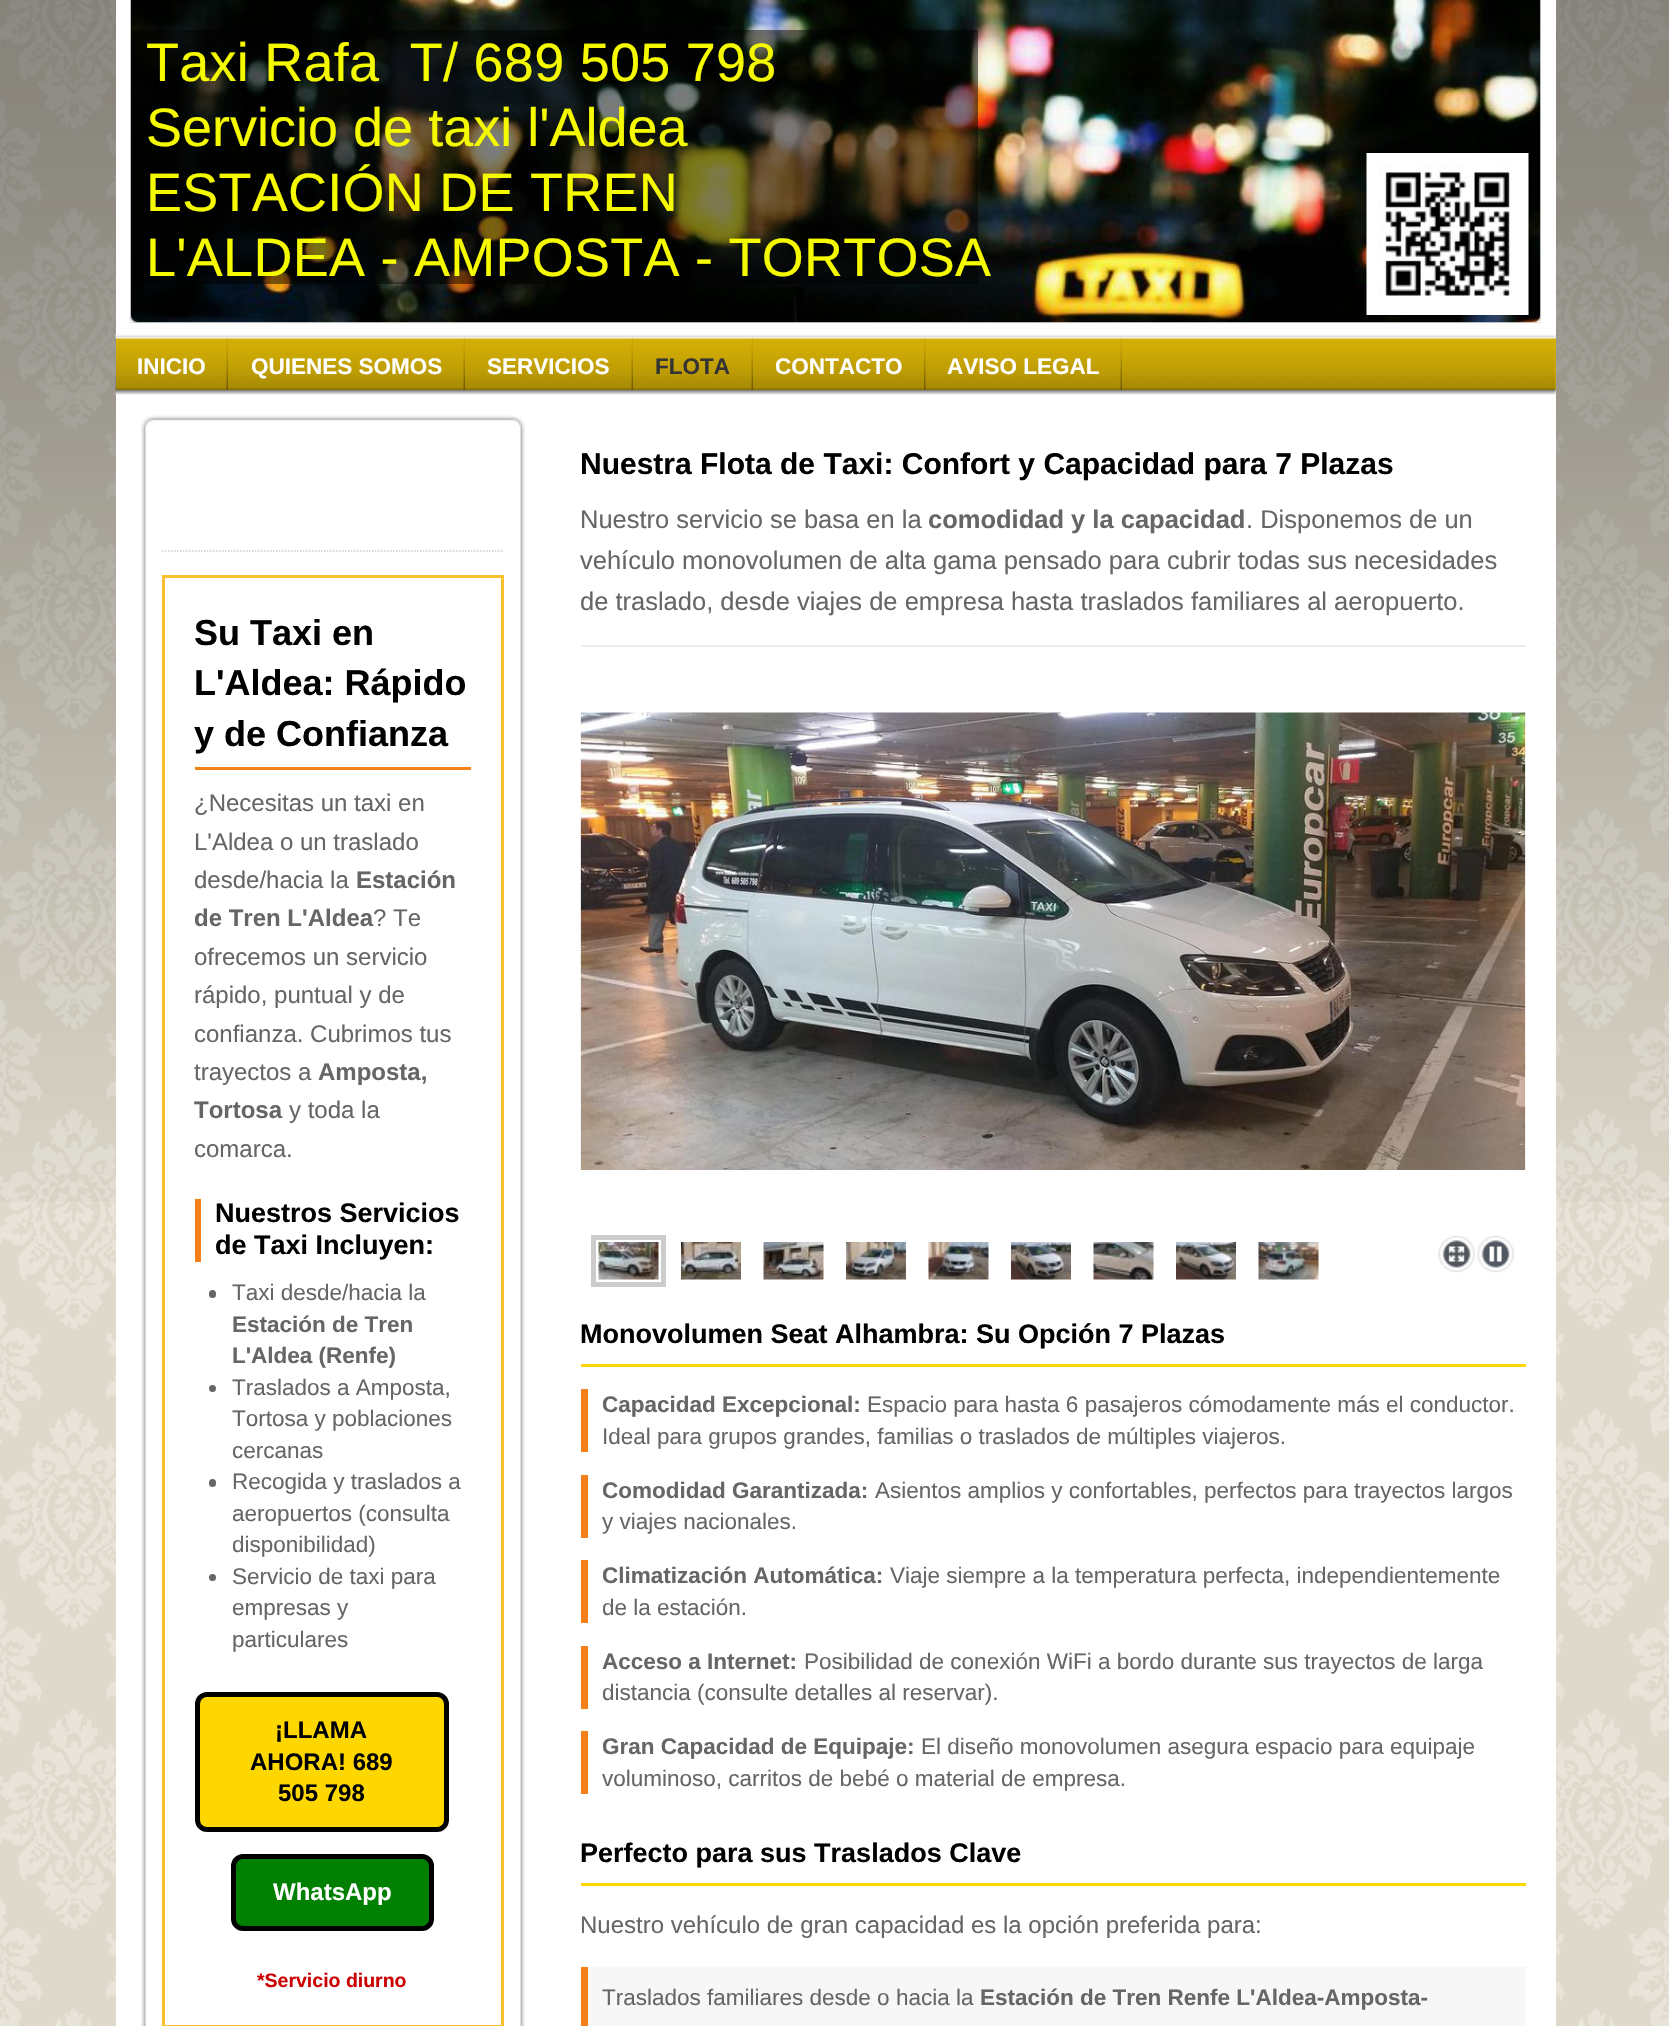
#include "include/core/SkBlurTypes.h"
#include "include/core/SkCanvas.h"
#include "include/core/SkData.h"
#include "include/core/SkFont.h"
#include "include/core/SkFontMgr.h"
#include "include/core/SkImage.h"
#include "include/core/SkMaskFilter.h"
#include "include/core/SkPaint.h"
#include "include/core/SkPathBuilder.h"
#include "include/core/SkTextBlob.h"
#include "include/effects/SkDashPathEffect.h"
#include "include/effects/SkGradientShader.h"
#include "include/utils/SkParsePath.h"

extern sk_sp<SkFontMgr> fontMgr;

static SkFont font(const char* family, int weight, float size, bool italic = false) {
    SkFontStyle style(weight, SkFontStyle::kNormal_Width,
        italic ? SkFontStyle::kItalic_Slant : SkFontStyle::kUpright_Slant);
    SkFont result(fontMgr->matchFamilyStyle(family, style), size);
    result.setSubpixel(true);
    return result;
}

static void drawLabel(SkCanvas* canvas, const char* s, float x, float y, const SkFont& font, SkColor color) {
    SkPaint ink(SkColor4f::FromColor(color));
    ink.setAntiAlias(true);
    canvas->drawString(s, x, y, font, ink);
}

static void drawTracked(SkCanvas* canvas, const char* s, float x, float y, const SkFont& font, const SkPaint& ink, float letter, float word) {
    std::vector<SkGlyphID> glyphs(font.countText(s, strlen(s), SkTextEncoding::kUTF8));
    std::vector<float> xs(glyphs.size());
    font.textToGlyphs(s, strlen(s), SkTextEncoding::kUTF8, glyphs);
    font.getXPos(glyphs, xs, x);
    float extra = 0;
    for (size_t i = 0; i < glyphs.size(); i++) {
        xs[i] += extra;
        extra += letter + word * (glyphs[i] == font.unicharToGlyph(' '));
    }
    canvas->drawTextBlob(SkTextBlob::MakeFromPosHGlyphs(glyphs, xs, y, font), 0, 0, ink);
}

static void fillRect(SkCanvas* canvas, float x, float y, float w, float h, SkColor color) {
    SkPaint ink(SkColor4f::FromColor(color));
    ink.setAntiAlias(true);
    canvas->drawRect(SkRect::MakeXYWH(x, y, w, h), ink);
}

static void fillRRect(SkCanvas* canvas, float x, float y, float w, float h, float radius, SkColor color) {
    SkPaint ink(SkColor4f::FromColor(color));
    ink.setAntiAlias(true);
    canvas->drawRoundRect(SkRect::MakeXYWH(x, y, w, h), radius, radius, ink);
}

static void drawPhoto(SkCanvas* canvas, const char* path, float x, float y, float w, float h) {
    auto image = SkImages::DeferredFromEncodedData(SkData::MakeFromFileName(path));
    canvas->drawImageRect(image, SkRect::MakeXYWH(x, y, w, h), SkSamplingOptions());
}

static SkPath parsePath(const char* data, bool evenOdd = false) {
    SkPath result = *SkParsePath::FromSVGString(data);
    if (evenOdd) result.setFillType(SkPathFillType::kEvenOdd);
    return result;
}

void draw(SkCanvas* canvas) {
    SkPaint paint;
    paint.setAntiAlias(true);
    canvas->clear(0xFFFFFFFF);
    drawPhoto(canvas, "assets/img1.png", 0, 0, 1669, 2026);
    drawPhoto(canvas, "assets/img2.png", 0, 0, 1669, 1202);
    fillRect(canvas, 116, 0, 1440, 2026, 0xFFFFFFFF);
    fillRect(canvas, 131, 0, 1410, 323, 0xFFEEEEEE);
    drawPhoto(canvas, "assets/img3.png", 130, 0, 1411, 323);
    fillRect(canvas, 131, 30, 847, 254, 0x80000000);
    SkFont font1 = font("Liberation Sans", 400, 54);
    paint.setColor(0xFFF5FA00);
    drawTracked(canvas, "Taxi Rafa  T/ 689 505 798", 146, 81, font1, paint, 0.25f, 0);
    drawLabel(canvas, "Servicio de taxi l'Aldea", 146, 146, font1, 0xFFF5FA00);
    drawTracked(canvas, "ESTACIÓN DE TREN", 146, 211, font1, paint, 0.25f, 0);
    drawTracked(canvas, "L'ALDEA - AMPOSTA - TORTOSA", 146, 276, font1, paint, 0.25f, 0);
    drawPhoto(canvas, "assets/img4.png", 1366, 153, 163, 162);
    drawPhoto(canvas, "assets/img5.png", 130, 315, 8, 8);
    drawPhoto(canvas, "assets/img6.png", 1533, 315, 8, 8);
    drawPhoto(canvas, "assets/img7.png", 115, 334, 1441, 4);
    fillRect(canvas, 116, 338, 1440, 52, 0xFFD4AF05);
    drawPhoto(canvas, "assets/img8.png", 115, 337, 1441, 53);
    drawPhoto(canvas, "assets/img9.png", 226, 338, 2, 52);
    SkFont font2 = font("Liberation Sans", 700, 22.5f);
    drawLabel(canvas, "INICIO", 137, 374, font2, 0xFFFFFFFF);
    drawPhoto(canvas, "assets/img10.png", 463, 338, 2, 52);
    drawLabel(canvas, "QUIENES SOMOS", 251, 374, font2, 0xFFFFFFFF);
    drawPhoto(canvas, "assets/img11.png", 631, 338, 2, 52);
    drawLabel(canvas, "SERVICIOS", 487, 374, font2, 0xFFFFFFFF);
    drawPhoto(canvas, "assets/img11.png", 751, 338, 2, 52);
    drawLabel(canvas, "FLOTA", 655, 374, font2, 0xFF333333);
    drawPhoto(canvas, "assets/img12.png", 924, 338, 2, 52);
    drawLabel(canvas, "CONTACTO", 775, 374, font2, 0xFFFFFFFF);
    drawPhoto(canvas, "assets/img13.png", 1120, 338, 2, 52);
    drawLabel(canvas, "AVISO LEGAL", 947, 374, font2, 0xFFFFFFFF);
    drawPhoto(canvas, "assets/img14.png", 115, 390, 1441, 5);
    drawPhoto(canvas, "assets/img15.png", 141, 415, 384, 14);
    drawPhoto(canvas, "assets/img16.png", 141, 429, 384, 1597);
    paint.setStroke(true);
    paint.setStrokeWidth(1.5f);
    paint.setColor(0xFFCCCCCC);
    paint.setPathEffect(SkDashPathEffect::Make({{1.5f, 1.5f}}, 0));
    canvas->drawPath(parsePath("M162 551H504"), paint);
    paint.setPathEffect(nullptr);
    paint.setStrokeWidth(3);
    paint.setColor(0xFFFBC02E);
    canvas->drawRect(SkRect::MakeXYWH(163.5f, 576.5f, 339, 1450), paint);
    fillRect(canvas, 195, 767, 276, 3, 0xFFF57F18);
    SkFont font3 = font("Liberation Sans", 700, 36);
    drawLabel(canvas, "Su Taxi en", 194, 645, font3, 0xFF000000);
    drawLabel(canvas, "L'Aldea: Rápido", 194, 695, font3, 0xFF000000);
    drawLabel(canvas, "y de Confianza", 194, 746, font3, 0xFF000000);
    SkFont font4 = font("Liberation Sans", 400, 24);
    drawLabel(canvas, "¿Necesitas un taxi en", 194, 811, font4, 0xFF666666);
    drawLabel(canvas, "L'Aldea o un traslado", 194, 850, font4, 0xFF666666);
    drawLabel(canvas, "desde/hacia la", 194, 888, font4, 0xFF666666);
    SkFont font5 = font("Liberation Sans", 700, 24);
    drawLabel(canvas, "Estación", 356, 888, font5, 0xFF666666);
    drawLabel(canvas, "de Tren L'Aldea", 194, 926, font5, 0xFF666666);
    drawLabel(canvas, "? Te", 373, 926, font4, 0xFF666666);
    drawLabel(canvas, "ofrecemos un servicio", 194, 965, font4, 0xFF666666);
    drawLabel(canvas, "rápido, puntual y de", 194, 1003, font4, 0xFF666666);
    drawLabel(canvas, "confianza. Cubrimos tus", 194, 1042, font4, 0xFF666666);
    drawLabel(canvas, "trayectos a", 194, 1080, font4, 0xFF666666);
    drawLabel(canvas, "Amposta,", 318, 1080, font5, 0xFF666666);
    drawLabel(canvas, "Tortosa", 194, 1118, font5, 0xFF666666);
    drawLabel(canvas, "y toda la", 289, 1118, font4, 0xFF666666);
    drawLabel(canvas, "comarca.", 194, 1157, font4, 0xFF666666);
    fillRect(canvas, 195, 1199, 6, 63, 0xFFF57F18);
    SkFont font6 = font("Liberation Sans", 700, 27);
    drawLabel(canvas, "Nuestros Servicios", 215, 1222, font6, 0xFF000000);
    drawLabel(canvas, "de Taxi Incluyen:", 215, 1254, font6, 0xFF000000);
    fillRRect(canvas, 209, 1290, 7, 8, 3.5f, 0xFF666666);
    SkFont font7 = font("Liberation Sans", 400, 22.5f);
    drawLabel(canvas, "Taxi desde/hacia la", 232, 1300, font7, 0xFF666666);
    drawLabel(canvas, "Estación de Tren", 232, 1332, font2, 0xFF666666);
    drawLabel(canvas, "L'Aldea (Renfe)", 232, 1363, font2, 0xFF666666);
    paint.setStroke(false);
    paint.setColor(0xFF666666);
    canvas->drawCircle(212.5f, 1388.5f, 3.5f, paint);
    drawLabel(canvas, "Traslados a Amposta,", 232, 1395, font7, 0xFF666666);
    drawLabel(canvas, "Tortosa y poblaciones", 232, 1426, font7, 0xFF666666);
    drawLabel(canvas, "cercanas", 232, 1458, font7, 0xFF666666);
    fillRRect(canvas, 209, 1479, 7, 8, 3.5f, 0xFF666666);
    drawLabel(canvas, "Recogida y traslados a", 232, 1489, font7, 0xFF666666);
    drawLabel(canvas, "aeropuertos (consulta", 232, 1521, font7, 0xFF666666);
    drawLabel(canvas, "disponibilidad)", 232, 1552, font7, 0xFF666666);
    canvas->drawCircle(212.5f, 1577.5f, 3.5f, paint);
    drawLabel(canvas, "Servicio de taxi para", 232, 1584, font7, 0xFF666666);
    drawLabel(canvas, "empresas y", 232, 1615, font7, 0xFF666666);
    drawLabel(canvas, "particulares", 232, 1647, font7, 0xFF666666);
    paint.setColor(0xFFFFD700);
    canvas->drawRoundRect(SkRect::MakeXYWH(197.5f, 1694.5f, 249, 135), 9.5f, 9.5f, paint);
    paint.setStroke(true);
    paint.setStrokeWidth(5);
    paint.setColor(0xFF000000);
    canvas->drawRoundRect(SkRect::MakeXYWH(197.5f, 1694.5f, 249, 135), 9.5f, 9.5f, paint);
    drawLabel(canvas, "¡LLAMA", 275, 1738, font5, 0xFF000000);
    drawLabel(canvas, "AHORA! 689", 250, 1770, font5, 0xFF000000);
    drawLabel(canvas, "505 798", 278, 1801, font5, 0xFF000000);
    paint.setStroke(false);
    paint.setColor(0xFF008000);
    canvas->drawRoundRect(SkRect::MakeXYWH(233.5f, 1856.5f, 198, 72), 9.5f, 9.5f, paint);
    paint.setStroke(true);
    paint.setColor(0xFF000000);
    canvas->drawRoundRect(SkRect::MakeXYWH(233.5f, 1856.5f, 198, 72), 9.5f, 9.5f, paint);
    drawLabel(canvas, "WhatsApp", 273, 1900, font5, 0xFFFFFFFF);
    SkFont font8 = font("Liberation Sans", 700, 19.5f);
    drawLabel(canvas, "*Servicio diurno", 257, 1987, font8, 0xFFCC0000);
    SkFont font9 = font("Liberation Sans", 700, 30);
    drawLabel(canvas, "Nuestra Flota de Taxi: Confort y Capacidad para 7 Plazas", 580, 474, font9, 0xFF000000);
    fillRect(canvas, 581, 645, 945, 2, 0xFFEEEEEE);
    SkFont font10 = font("Liberation Sans", 400, 25.5f);
    drawLabel(canvas, "Nuestro servicio se basa en la", 580, 528, font10, 0xFF666666);
    SkFont font11 = font("Liberation Sans", 700, 25.5f);
    drawLabel(canvas, "comodidad y la capacidad", 928, 528, font11, 0xFF666666);
    drawLabel(canvas, ". Disponemos de un", 1246, 528, font10, 0xFF666666);
    drawLabel(canvas, "vehículo monovolumen de alta gama pensado para cubrir todas sus necesidades", 580, 569, font10, 0xFF666666);
    drawLabel(canvas, "de traslado, desde viajes de empresa hasta traslados familiares al aeropuerto.", 580, 610, font10, 0xFF666666);
    drawPhoto(canvas, "assets/img17.png", 580, 712, 946, 458);
    paint.setColor(0xFFCCCCCC);
    canvas->drawRect(SkRect::MakeXYWH(593.5f, 1237.5f, 70, 47), paint);
    drawPhoto(canvas, "assets/img18.png", 598, 1242, 61, 38);
    drawPhoto(canvas, "assets/img19.png", 681, 1242, 60, 38);
    drawPhoto(canvas, "assets/img20.png", 763, 1242, 61, 38);
    drawPhoto(canvas, "assets/img21.png", 846, 1242, 60, 38);
    drawPhoto(canvas, "assets/img22.png", 928, 1242, 61, 38);
    drawPhoto(canvas, "assets/img23.png", 1011, 1242, 60, 38);
    drawPhoto(canvas, "assets/img24.png", 1093, 1242, 61, 38);
    drawPhoto(canvas, "assets/img25.png", 1176, 1242, 60, 38);
    drawPhoto(canvas, "assets/img26.png", 1258, 1242, 61, 38);
    drawPhoto(canvas, "assets/img27.png", 1438, 1235, 38, 38);
    drawPhoto(canvas, "assets/img28.png", 1477, 1235, 38, 38);
    fillRect(canvas, 581, 1364, 945, 3, 0xFFFFD700);
    drawLabel(canvas, "Monovolumen Seat Alhambra: Su Opción 7 Plazas", 580, 1343, font6, 0xFF000000);
    fillRect(canvas, 581, 1389, 7, 63, 0xFFF57F18);
    drawLabel(canvas, "Capacidad Excepcional:", 602, 1412, font2, 0xFF666666);
    drawLabel(canvas, "Espacio para hasta 6 pasajeros cómodamente más el conductor.", 867, 1412, font7, 0xFF666666);
    drawLabel(canvas, "Ideal para grupos grandes, familias o traslados de múltiples viajeros.", 602, 1444, font7, 0xFF666666);
    fillRect(canvas, 581, 1475, 7, 63, 0xFFF57F18);
    drawLabel(canvas, "Comodidad Garantizada:", 602, 1498, font2, 0xFF666666);
    drawLabel(canvas, "Asientos amplios y confortables, perfectos para trayectos largos", 875, 1498, font7, 0xFF666666);
    drawLabel(canvas, "y viajes nacionales.", 602, 1529, font7, 0xFF666666);
    fillRect(canvas, 581, 1560, 7, 63, 0xFFF57F18);
    drawLabel(canvas, "Climatización Automática:", 602, 1583, font2, 0xFF666666);
    drawLabel(canvas, "Viaje siempre a la temperatura perfecta, independientemente", 890, 1583, font7, 0xFF666666);
    drawLabel(canvas, "de la estación.", 602, 1615, font7, 0xFF666666);
    fillRect(canvas, 581, 1646, 7, 63, 0xFFF57F18);
    drawLabel(canvas, "Acceso a Internet:", 602, 1669, font2, 0xFF666666);
    drawLabel(canvas, "Posibilidad de conexión WiFi a bordo durante sus trayectos de larga", 804, 1669, font7, 0xFF666666);
    drawLabel(canvas, "distancia (consulte detalles al reservar).", 602, 1700, font7, 0xFF666666);
    fillRect(canvas, 581, 1731, 7, 63, 0xFFF57F18);
    drawLabel(canvas, "Gran Capacidad de Equipaje:", 602, 1754, font2, 0xFF666666);
    drawLabel(canvas, "El diseño monovolumen asegura espacio para equipaje", 921, 1754, font7, 0xFF666666);
    drawLabel(canvas, "voluminoso, carritos de bebé o material de empresa.", 602, 1786, font7, 0xFF666666);
    fillRect(canvas, 581, 1883, 945, 3, 0xFFFFD700);
    drawLabel(canvas, "Perfecto para sus Traslados Clave", 580, 1862, font6, 0xFF000000);
    drawLabel(canvas, "Nuestro vehículo de gran capacidad es la opción preferida para:", 580, 1933, font4, 0xFF666666);
    fillRect(canvas, 588, 1967, 938, 59, 0xFFF7F7F7);
    fillRect(canvas, 581, 1967, 7, 59, 0xFFF57F18);
    drawLabel(canvas, "Traslados familiares desde o hacia la", 602, 2005, font7, 0xFF666666);
    drawLabel(canvas, "Estación de Tren Renfe L'Aldea-Amposta-", 980, 2005, font2, 0xFF666666);
}
